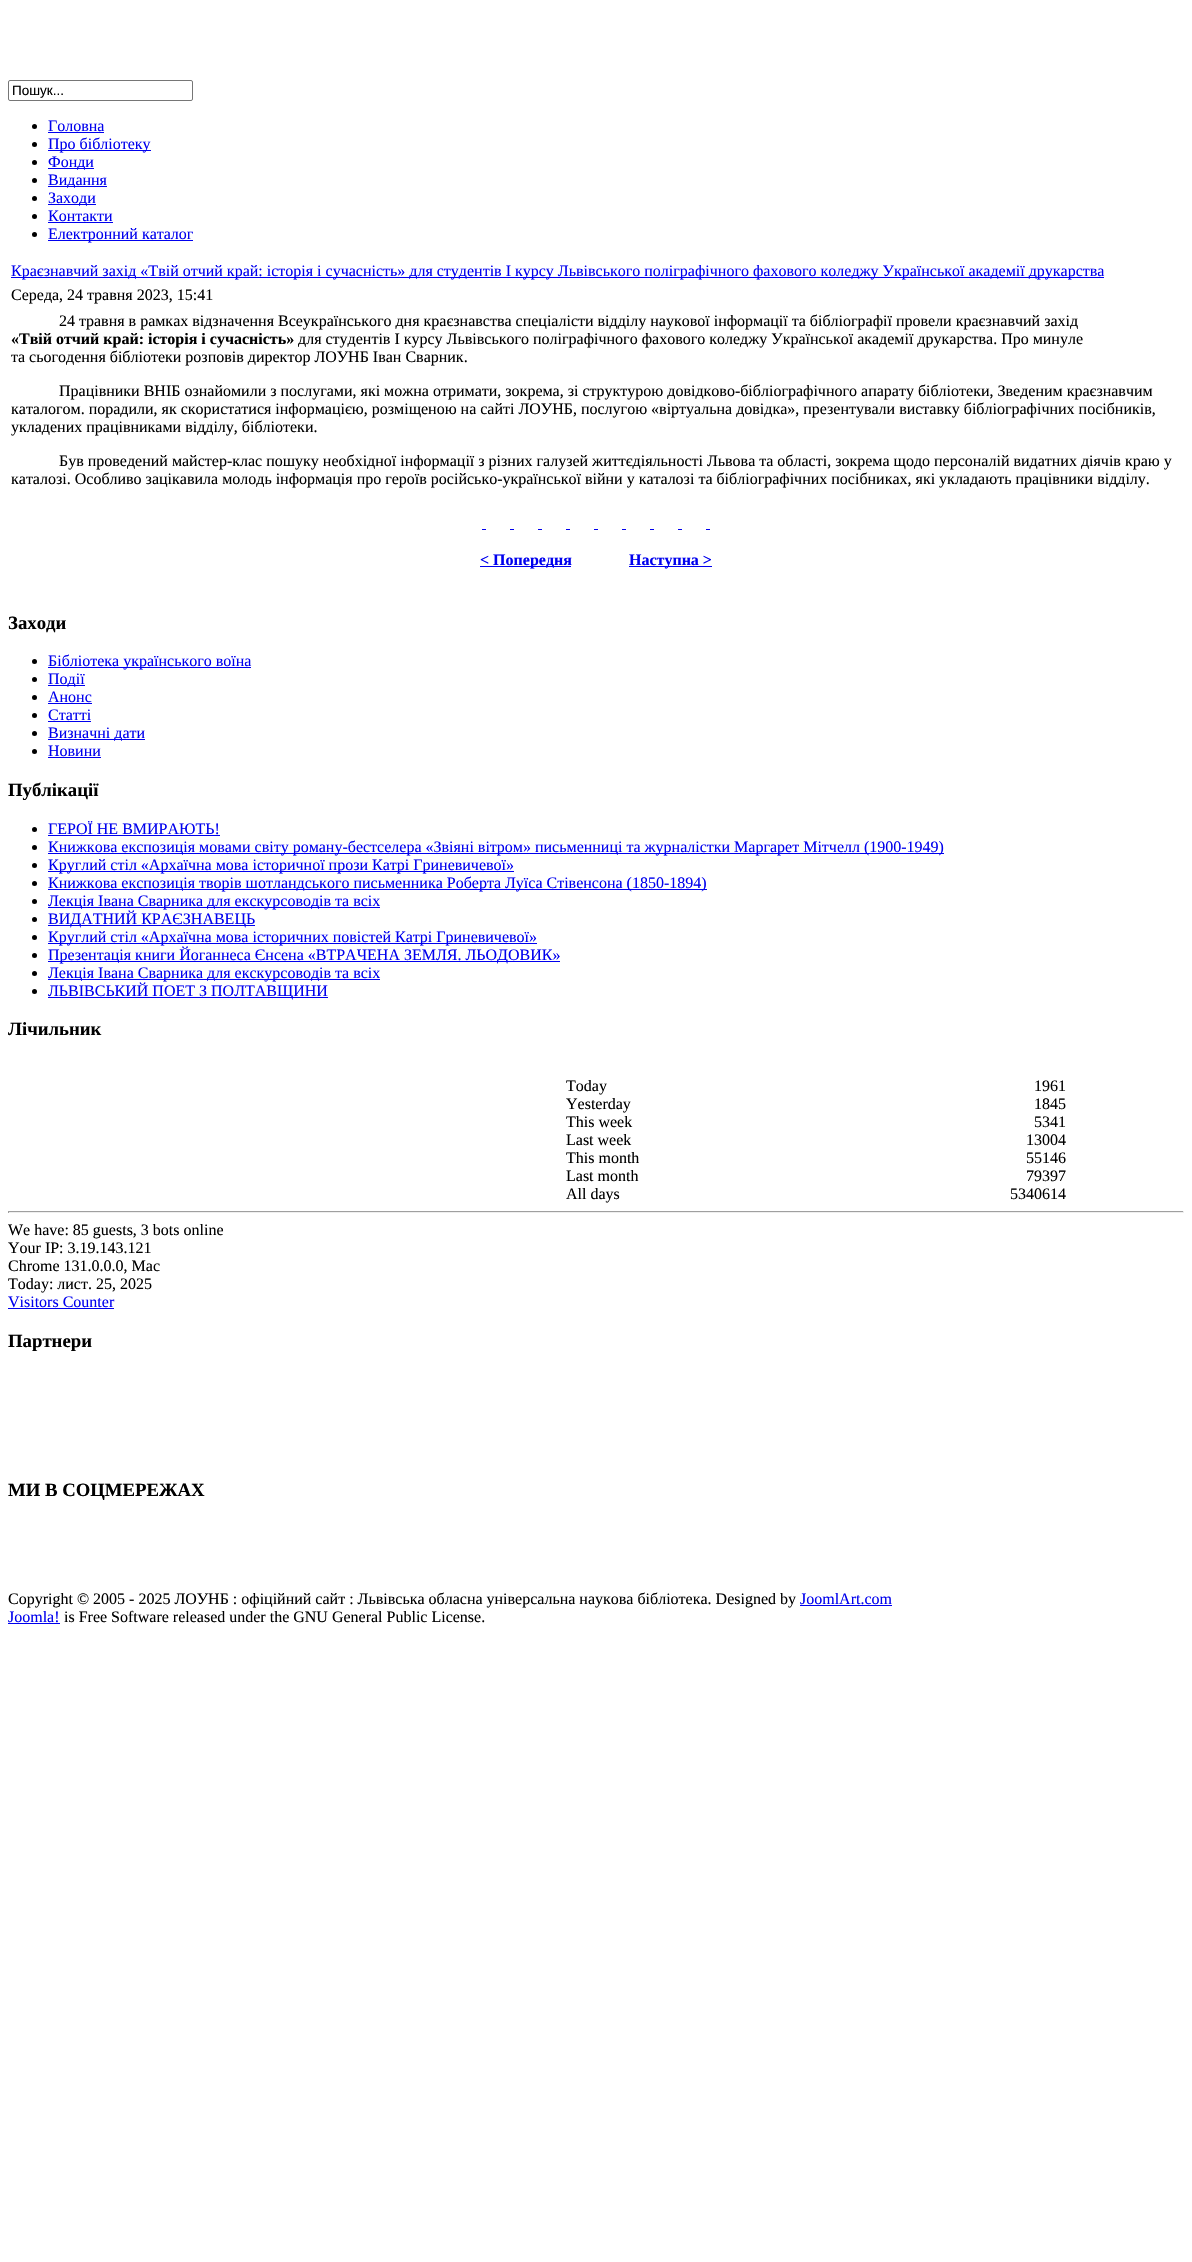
#include "include/core/SkBlurTypes.h"
#include "include/core/SkCanvas.h"
#include "include/core/SkData.h"
#include "include/core/SkFont.h"
#include "include/core/SkFontMgr.h"
#include "include/core/SkImage.h"
#include "include/core/SkMaskFilter.h"
#include "include/core/SkPaint.h"
#include "include/core/SkPathBuilder.h"
#include "include/core/SkTextBlob.h"
#include "include/effects/SkDashPathEffect.h"
#include "include/effects/SkGradientShader.h"
#include "include/utils/SkParsePath.h"

extern sk_sp<SkFontMgr> fontMgr;

static SkFont font(const char* family, int weight, float size, bool italic = false) {
    SkFontStyle style(weight, SkFontStyle::kNormal_Width,
        italic ? SkFontStyle::kItalic_Slant : SkFontStyle::kUpright_Slant);
    SkFont result(fontMgr->matchFamilyStyle(family, style), size);
    result.setSubpixel(true);
    return result;
}

static void drawLabel(SkCanvas* canvas, const char* s, float x, float y, const SkFont& font, SkColor color) {
    SkPaint ink(SkColor4f::FromColor(color));
    ink.setAntiAlias(true);
    canvas->drawString(s, x, y, font, ink);
}

static void fillRect(SkCanvas* canvas, float x, float y, float w, float h, SkColor color) {
    SkPaint ink(SkColor4f::FromColor(color));
    ink.setAntiAlias(true);
    canvas->drawRect(SkRect::MakeXYWH(x, y, w, h), ink);
}

void draw(SkCanvas* canvas) {
    SkPaint paint;
    paint.setAntiAlias(true);
    canvas->clear(0xFFFFFFFF);
    paint.setStroke(true);
    paint.setStrokeWidth(1);
    paint.setColor(0xFF767676);
    canvas->drawRoundRect(SkRect::MakeXYWH(8.5f, 80.5f, 184, 20), 1.5f, 1.5f, paint);
    SkFont font1 = font("Liberation Sans", 400, 13.5f);
    drawLabel(canvas, "Пошук...", 12, 95, font1, 0xFF000000);
    paint.setStroke(false);
    paint.setColor(0xFF000000);
    canvas->drawCircle(34.5f, 126.5f, 2.5f, paint);
    SkFont font2 = font("Liberation Serif", 400, 16);
    drawLabel(canvas, "Головна", 48, 131, font2, 0xFF0000EE);
    fillRect(canvas, 48, 132, 56, 1, 0xFF0000EE);
    canvas->drawCircle(34.5f, 144.5f, 2.5f, paint);
    fillRect(canvas, 48, 150, 103, 1, 0xFF0000EE);
    drawLabel(canvas, "Про бібліотеку", 48, 149, font2, 0xFF0000EE);
    canvas->drawCircle(34.5f, 162.5f, 2.5f, paint);
    fillRect(canvas, 48, 168, 46, 1, 0xFF0000EE);
    drawLabel(canvas, "Фонди", 48, 167, font2, 0xFF0000EE);
    canvas->drawCircle(34.5f, 180.5f, 2.5f, paint);
    fillRect(canvas, 48, 186, 59, 1, 0xFF0000EE);
    drawLabel(canvas, "Видання", 48, 185, font2, 0xFF0000EE);
    canvas->drawCircle(34.5f, 198.5f, 2.5f, paint);
    fillRect(canvas, 48, 204, 48, 1, 0xFF0000EE);
    drawLabel(canvas, "Заходи", 48, 203, font2, 0xFF0000EE);
    canvas->drawCircle(34.5f, 216.5f, 2.5f, paint);
    drawLabel(canvas, "Контакти", 48, 221, font2, 0xFF0000EE);
    fillRect(canvas, 48, 222, 65, 1, 0xFF0000EE);
    canvas->drawCircle(34.5f, 234.5f, 2.5f, paint);
    fillRect(canvas, 48, 240, 145, 1, 0xFF0000EE);
    drawLabel(canvas, "Електронний каталог", 48, 239, font2, 0xFF0000EE);
    fillRect(canvas, 11, 277, 1093, 1, 0xFF0000EE);
    drawLabel(canvas, "Краєзнавчий захід «Твій отчий край: історія і сучасність» для студентів І курсу Львівського поліграфічного фахового коледжу Української академії друкарства", 11, 276, font2, 0xFF0000EE);
    drawLabel(canvas, "Середа, 24 травня 2023, 15:41", 11, 300, font2, 0xFF000000);
    drawLabel(canvas, "24 травня в рамках відзначення Всеукраїнського дня краєзнавства спеціалісти відділу наукової інформації та бібліографії провели краєзнавчий захід", 59, 326, font2, 0xFF000000);
    SkFont font3 = font("Liberation Serif", 700, 16);
    drawLabel(canvas, "«Твій отчий край: історія і сучасність»", 11, 344, font3, 0xFF000000);
    drawLabel(canvas, "для студентів І курсу Львівського поліграфічного фахового коледжу Української академії друкарства. Про минуле", 298, 344, font2, 0xFF000000);
    drawLabel(canvas, "та сьогодення бібліотеки розповів директор ЛОУНБ Іван Сварник.", 11, 362, font2, 0xFF000000);
    drawLabel(canvas, "Працівники ВНІБ ознайомили з послугами, які можна отримати, зокрема, зі структурою довідково-бібліографічного апарату бібліотеки, Зведеним краєзнавчим", 59, 396, font2, 0xFF000000);
    drawLabel(canvas, "каталогом. порадили, як скористатися інформацією, розміщеною на сайті ЛОУНБ, послугою «віртуальна довідка», презентували виставку бібліографічних посібників,", 11, 414, font2, 0xFF000000);
    drawLabel(canvas, "укладених працівниками відділу, бібліотеки.", 11, 432, font2, 0xFF000000);
    drawLabel(canvas, "Був проведений майстер-клас пошуку необхідної інформації з різних галузей життєдіяльності Львова та області, зокрема щодо персоналій видатних діячів краю у", 59, 466, font2, 0xFF000000);
    drawLabel(canvas, "каталозі. Особливо зацікавила молодь інформація про героїв російсько-української війни у каталозі та бібліографічних посібниках, які укладають працівники відділу.", 11, 484, font2, 0xFF000000);
    fillRect(canvas, 482, 529, 4, 1, 0xFF0000EE);
    fillRect(canvas, 510, 529, 4, 1, 0xFF0000EE);
    fillRect(canvas, 538, 529, 4, 1, 0xFF0000EE);
    fillRect(canvas, 566, 529, 4, 1, 0xFF0000EE);
    fillRect(canvas, 594, 529, 4, 1, 0xFF0000EE);
    fillRect(canvas, 622, 529, 4, 1, 0xFF0000EE);
    fillRect(canvas, 650, 529, 4, 1, 0xFF0000EE);
    fillRect(canvas, 678, 529, 4, 1, 0xFF0000EE);
    fillRect(canvas, 706, 529, 4, 1, 0xFF0000EE);
    fillRect(canvas, 480, 566, 91, 1, 0xFF0000EE);
    drawLabel(canvas, "< Попередня", 480, 565, font3, 0xFF0000EE);
    fillRect(canvas, 629, 566, 83, 1, 0xFF0000EE);
    drawLabel(canvas, "Наступна >", 629, 565, font3, 0xFF0000EE);
    SkFont font4 = font("Liberation Serif", 700, 18.75f);
    drawLabel(canvas, "Заходи", 8, 629, font4, 0xFF000000);
    canvas->drawCircle(34.5f, 661.5f, 2.5f, paint);
    fillRect(canvas, 48, 667, 203, 1, 0xFF0000EE);
    drawLabel(canvas, "Бібліотека українського воїна", 48, 666, font2, 0xFF0000EE);
    canvas->drawCircle(34.5f, 679.5f, 2.5f, paint);
    fillRect(canvas, 48, 685, 37, 1, 0xFF0000EE);
    drawLabel(canvas, "Події", 48, 684, font2, 0xFF0000EE);
    canvas->drawCircle(34.5f, 697.5f, 2.5f, paint);
    drawLabel(canvas, "Анонс", 48, 702, font2, 0xFF0000EE);
    fillRect(canvas, 48, 703, 44, 1, 0xFF0000EE);
    canvas->drawCircle(34.5f, 715.5f, 2.5f, paint);
    drawLabel(canvas, "Статті", 48, 720, font2, 0xFF0000EE);
    fillRect(canvas, 48, 721, 43, 1, 0xFF0000EE);
    canvas->drawCircle(34.5f, 733.5f, 2.5f, paint);
    fillRect(canvas, 48, 739, 97, 1, 0xFF0000EE);
    drawLabel(canvas, "Визначні дати", 48, 738, font2, 0xFF0000EE);
    canvas->drawCircle(34.5f, 751.5f, 2.5f, paint);
    drawLabel(canvas, "Новини", 48, 756, font2, 0xFF0000EE);
    fillRect(canvas, 48, 757, 53, 1, 0xFF0000EE);
    drawLabel(canvas, "Публікації", 8, 796, font4, 0xFF000000);
    canvas->drawCircle(34.5f, 829.5f, 2.5f, paint);
    drawLabel(canvas, "ГЕРОЇ НЕ ВМИРАЮТЬ!", 48, 834, font2, 0xFF0000EE);
    fillRect(canvas, 48, 835, 172, 1, 0xFF0000EE);
    canvas->drawCircle(34.5f, 847.5f, 2.5f, paint);
    fillRect(canvas, 48, 853, 896, 1, 0xFF0000EE);
    drawLabel(canvas, "Книжкова експозиція мовами світу роману-бестселера «Звіяні вітром» письменниці та журналістки Маргарет Мітчелл (1900-1949)", 48, 852, font2, 0xFF0000EE);
    canvas->drawCircle(34.5f, 865.5f, 2.5f, paint);
    fillRect(canvas, 48, 871, 466, 1, 0xFF0000EE);
    drawLabel(canvas, "Круглий стіл «Архаїчна мова історичної прози Катрі Гриневичевої»", 48, 870, font2, 0xFF0000EE);
    canvas->drawCircle(34.5f, 883.5f, 2.5f, paint);
    fillRect(canvas, 48, 889, 659, 1, 0xFF0000EE);
    drawLabel(canvas, "Книжкова експозиція творів шотландського письменника Роберта Луїса Стівенсона (1850-1894)", 48, 888, font2, 0xFF0000EE);
    canvas->drawCircle(34.5f, 901.5f, 2.5f, paint);
    fillRect(canvas, 48, 907, 332, 1, 0xFF0000EE);
    drawLabel(canvas, "Лекція Івана Сварника для екскурсоводів та всіх", 48, 906, font2, 0xFF0000EE);
    canvas->drawCircle(34.5f, 919.5f, 2.5f, paint);
    fillRect(canvas, 48, 925, 207, 1, 0xFF0000EE);
    drawLabel(canvas, "ВИДАТНИЙ КРАЄЗНАВЕЦЬ", 48, 924, font2, 0xFF0000EE);
    canvas->drawCircle(34.5f, 937.5f, 2.5f, paint);
    fillRect(canvas, 48, 943, 489, 1, 0xFF0000EE);
    drawLabel(canvas, "Круглий стіл «Архаїчна мова історичних повістей Катрі Гриневичевої»", 48, 942, font2, 0xFF0000EE);
    canvas->drawCircle(34.5f, 955.5f, 2.5f, paint);
    fillRect(canvas, 48, 961, 512, 1, 0xFF0000EE);
    drawLabel(canvas, "Презентація книги Йоганнеса Єнсена «ВТРАЧЕНА ЗЕМЛЯ. ЛЬОДОВИК»", 48, 960, font2, 0xFF0000EE);
    canvas->drawCircle(34.5f, 973.5f, 2.5f, paint);
    fillRect(canvas, 48, 979, 332, 1, 0xFF0000EE);
    drawLabel(canvas, "Лекція Івана Сварника для екскурсоводів та всіх", 48, 978, font2, 0xFF0000EE);
    canvas->drawCircle(34.5f, 991.5f, 2.5f, paint);
    fillRect(canvas, 48, 997, 280, 1, 0xFF0000EE);
    drawLabel(canvas, "ЛЬВІВСЬКИЙ ПОЕТ З ПОЛТАВЩИНИ", 48, 996, font2, 0xFF0000EE);
    drawLabel(canvas, "Лічильник", 8, 1035, font4, 0xFF000000);
    drawLabel(canvas, "Today", 566, 1091, font2, 0xFF000000);
    drawLabel(canvas, "1961", 1034, 1091, font2, 0xFF000000);
    drawLabel(canvas, "Yesterday", 566, 1109, font2, 0xFF000000);
    drawLabel(canvas, "1845", 1034, 1109, font2, 0xFF000000);
    drawLabel(canvas, "This week", 566, 1127, font2, 0xFF000000);
    drawLabel(canvas, "5341", 1034, 1127, font2, 0xFF000000);
    drawLabel(canvas, "Last week", 566, 1145, font2, 0xFF000000);
    drawLabel(canvas, "13004", 1026, 1145, font2, 0xFF000000);
    drawLabel(canvas, "This month", 566, 1163, font2, 0xFF000000);
    drawLabel(canvas, "55146", 1026, 1163, font2, 0xFF000000);
    drawLabel(canvas, "Last month", 566, 1181, font2, 0xFF000000);
    drawLabel(canvas, "79397", 1026, 1181, font2, 0xFF000000);
    drawLabel(canvas, "All days", 566, 1199, font2, 0xFF000000);
    drawLabel(canvas, "5340614", 1010, 1199, font2, 0xFF000000);
    fillRect(canvas, 8, 1211, 1176, 1, 0xFF9F9F9F);
    fillRect(canvas, 1183, 1211, 1, 2, 0xFFEEEEEE);
    fillRect(canvas, 8, 1212, 1176, 1, 0xFFEEEEEE);
    fillRect(canvas, 8, 1211, 1, 2, 0xFF9F9F9F);
    drawLabel(canvas, "We have: 85 guests, 3 bots online", 8, 1235, font2, 0xFF000000);
    drawLabel(canvas, "Your IP: 3.19.143.121", 8, 1253, font2, 0xFF000000);
    drawLabel(canvas, "Chrome 131.0.0.0, Mac", 8, 1271, font2, 0xFF000000);
    drawLabel(canvas, "Today: лист. 25, 2025", 8, 1289, font2, 0xFF000000);
    drawLabel(canvas, "Visitors Counter", 8, 1307, font2, 0xFF0000EE);
    fillRect(canvas, 8, 1308, 106, 1, 0xFF0000EE);
    drawLabel(canvas, "Партнери", 8, 1347, font4, 0xFF000000);
    drawLabel(canvas, "МИ В СОЦМЕРЕЖАХ", 8, 1496, font4, 0xFF000000);
    drawLabel(canvas, "Copyright © 2005 - 2025 ЛОУНБ : офіційний сайт : Львівська обласна універсальна наукова бібліотека. Designed by", 8, 1604, font2, 0xFF000000);
    drawLabel(canvas, "JoomlArt.com", 800, 1604, font2, 0xFF0000EE);
    fillRect(canvas, 800, 1605, 92, 1, 0xFF0000EE);
    drawLabel(canvas, "Joomla!", 8, 1622, font2, 0xFF0000EE);
    fillRect(canvas, 8, 1623, 52, 1, 0xFF0000EE);
    drawLabel(canvas, "is Free Software released under the GNU General Public License.", 64, 1622, font2, 0xFF000000);
}
